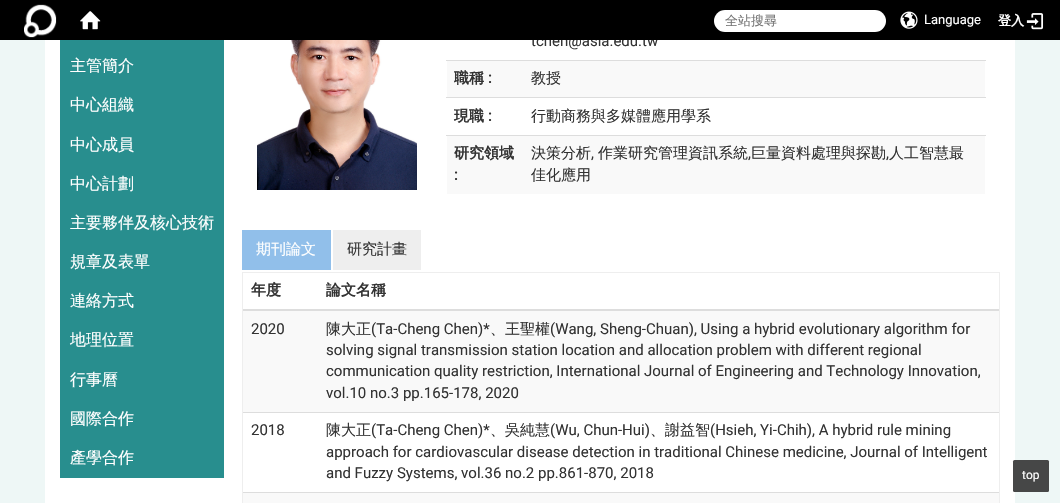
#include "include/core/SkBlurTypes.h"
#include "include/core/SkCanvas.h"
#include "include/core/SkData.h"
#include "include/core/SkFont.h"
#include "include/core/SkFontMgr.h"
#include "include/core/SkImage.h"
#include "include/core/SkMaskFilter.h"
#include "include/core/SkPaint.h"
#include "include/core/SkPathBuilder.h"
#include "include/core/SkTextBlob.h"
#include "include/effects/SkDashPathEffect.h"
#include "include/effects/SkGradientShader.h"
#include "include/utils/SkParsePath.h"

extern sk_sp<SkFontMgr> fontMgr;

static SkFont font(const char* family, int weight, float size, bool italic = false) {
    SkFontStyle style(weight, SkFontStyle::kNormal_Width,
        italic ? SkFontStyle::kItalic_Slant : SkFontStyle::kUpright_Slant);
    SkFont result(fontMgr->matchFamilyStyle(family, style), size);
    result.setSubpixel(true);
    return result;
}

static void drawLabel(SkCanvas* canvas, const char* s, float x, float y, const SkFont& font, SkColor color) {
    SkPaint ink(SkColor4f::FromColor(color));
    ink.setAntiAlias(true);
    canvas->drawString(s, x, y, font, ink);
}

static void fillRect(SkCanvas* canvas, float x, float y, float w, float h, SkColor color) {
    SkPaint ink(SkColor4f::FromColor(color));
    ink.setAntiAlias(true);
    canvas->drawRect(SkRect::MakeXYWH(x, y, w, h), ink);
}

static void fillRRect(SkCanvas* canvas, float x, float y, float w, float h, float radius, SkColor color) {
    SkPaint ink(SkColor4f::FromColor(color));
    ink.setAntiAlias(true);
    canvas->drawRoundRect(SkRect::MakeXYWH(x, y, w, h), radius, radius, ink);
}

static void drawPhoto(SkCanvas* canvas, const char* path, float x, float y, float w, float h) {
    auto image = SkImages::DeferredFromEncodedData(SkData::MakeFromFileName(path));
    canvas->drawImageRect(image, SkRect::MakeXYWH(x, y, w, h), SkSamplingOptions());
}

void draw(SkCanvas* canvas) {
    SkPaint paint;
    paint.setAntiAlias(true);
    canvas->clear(0xFFEEF7F6);
    fillRect(canvas, 45, 40, 970, 463, 0xFFFFFFFF);
    SkFont font1 = font("Roboto", 400, 15);
    drawLabel(canvas, "tchen@asia.edu.tw", 531, 46, font1, 0xFF333333);
    fillRect(canvas, 0, 0, 1060, 40, 0xFF000000);
    drawPhoto(canvas, "assets/img1.png", 24, 4, 33, 34);
    drawPhoto(canvas, "assets/img2.png", 80, 11, 21, 19);
    fillRRect(canvas, 714, 10, 172, 22, 11, 0xFFFFFFFF);
    SkFont font2 = font("WenQuanYi Zen Hei", 500, 13);
    drawLabel(canvas, "全站搜尋", 725, 25, font2, 0xFF757575);
    drawPhoto(canvas, "assets/img3.png", 900, 11, 18, 18);
    SkFont font3 = font("Roboto", 400, 13);
    drawLabel(canvas, "Language", 924, 24, font3, 0xFFFFFFFF);
    SkFont font4 = font("WenQuanYi Zen Hei", 700, 13);
    drawLabel(canvas, "登入", 998, 25, font4, 0xFFFFFFFF);
    drawPhoto(canvas, "assets/img4.png", 1026, 13, 18, 17);
    fillRect(canvas, 60, 40, 164, 438, 0xFF288E8E);
    SkFont font5 = font("WenQuanYi Zen Hei", 500, 16);
    drawLabel(canvas, "主管簡介", 70, 71, font5, 0xFFFFFFFF);
    drawLabel(canvas, "中心組織", 70, 110, font5, 0xFFFFFFFF);
    drawLabel(canvas, "中心成員", 70, 150, font5, 0xFFFFFFFF);
    drawLabel(canvas, "中心計劃", 70, 189, font5, 0xFFFFFFFF);
    drawLabel(canvas, "主要夥伴及核心技術", 70, 228, font5, 0xFFFFFFFF);
    drawLabel(canvas, "規章及表單", 70, 267, font5, 0xFFFFFFFF);
    drawLabel(canvas, "連絡方式", 70, 306, font5, 0xFFFFFFFF);
    drawLabel(canvas, "地理位置", 70, 345, font5, 0xFFFFFFFF);
    drawLabel(canvas, "行事曆", 70, 385, font5, 0xFFFFFFFF);
    drawLabel(canvas, "國際合作", 70, 424, font5, 0xFFFFFFFF);
    drawLabel(canvas, "產學合作", 70, 463, font5, 0xFFFFFFFF);
    drawPhoto(canvas, "assets/img5.png", 257, 40, 160, 150);
    fillRect(canvas, 447, 61, 538, 36, 0xFFF9F9F9);
    SkFont font6 = font("WenQuanYi Zen Hei", 700, 15);
    drawLabel(canvas, "職稱", 454, 83, font6, 0xFF333333);
    SkFont font7 = font("Roboto", 700, 15);
    drawLabel(canvas, ":", 488, 83, font7, 0xFF333333);
    fillRect(canvas, 446, 60, 540, 1, 0xFFDDDDDD);
    SkFont font8 = font("WenQuanYi Zen Hei", 500, 15);
    drawLabel(canvas, "教授", 531, 83, font8, 0xFF333333);
    drawLabel(canvas, "現職", 454, 121, font6, 0xFF333333);
    drawLabel(canvas, ":", 488, 121, font7, 0xFF333333);
    fillRect(canvas, 446, 97, 540, 1, 0xFFDDDDDD);
    drawLabel(canvas, "行動商務與多媒體應用學系", 531, 121, font8, 0xFF333333);
    fillRect(canvas, 447, 136, 538, 58, 0xFFF9F9F9);
    drawLabel(canvas, "研究領域", 454, 158, font6, 0xFF333333);
    drawLabel(canvas, ":", 454, 180, font7, 0xFF333333);
    fillRect(canvas, 446, 135, 540, 1, 0xFFDDDDDD);
    drawLabel(canvas, "決策分析", 531, 158, font8, 0xFF333333);
    drawLabel(canvas, ",", 591, 158, font1, 0xFF333333);
    drawLabel(canvas, "作業研究管理資訊系統", 598, 158, font8, 0xFF333333);
    drawLabel(canvas, ",", 748, 158, font1, 0xFF333333);
    drawLabel(canvas, "巨量資料處理與探勘", 751, 158, font8, 0xFF333333);
    drawLabel(canvas, ",", 886, 158, font1, 0xFF333333);
    drawLabel(canvas, "人工智慧最", 889, 158, font8, 0xFF333333);
    drawLabel(canvas, "佳化應用", 531, 180, font8, 0xFF333333);
    fillRect(canvas, 242, 230, 89, 40, 0xFF91BFEA);
    drawLabel(canvas, "期刊論文", 256, 254, font8, 0xFFFFFFFF);
    fillRect(canvas, 333, 230, 88, 40, 0xFFEEEEEE);
    drawLabel(canvas, "研究計畫", 347, 254, font8, 0xFF333333);
    paint.setStroke(true);
    paint.setStrokeWidth(1);
    paint.setColor(0xFFEEEEEE);
    canvas->drawRect(SkRect::MakeXYWH(242.5f, 272.5f, 757, 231), paint);
    fillRect(canvas, 243, 309, 756, 1, 0xFFDDDDDD);
    drawLabel(canvas, "年度", 251, 295, font6, 0xFF333333);
    drawLabel(canvas, "論文名稱", 326, 295, font6, 0xFF333333);
    fillRect(canvas, 243, 311, 756, 101, 0xFFF9F9F9);
    fillRect(canvas, 243, 310, 756, 1, 0xFFDDDDDD);
    drawLabel(canvas, "2020", 251, 334, font1, 0xFF333333);
    drawLabel(canvas, "陳大正", 326, 334, font8, 0xFF333333);
    drawLabel(canvas, "(Ta-Cheng Chen)*", 371, 334, font1, 0xFF333333);
    drawLabel(canvas, "、王聖權", 490, 334, font8, 0xFF333333);
    drawLabel(canvas, "(Wang, Sheng-Chuan), Using a hybrid evolutionary algorithm for", 550, 334, font1, 0xFF333333);
    drawLabel(canvas, "solving signal transmission station location and allocation problem with different regional", 326, 355, font1, 0xFF333333);
    drawLabel(canvas, "communication quality restriction, International Journal of Engineering and Technology Innovation,", 326, 376, font1, 0xFF333333);
    drawLabel(canvas, "vol.10 no.3 pp.165-178, 2020", 326, 398, font1, 0xFF333333);
    fillRect(canvas, 243, 412, 756, 1, 0xFFDDDDDD);
    drawLabel(canvas, "2018", 251, 435, font1, 0xFF333333);
    drawLabel(canvas, "陳大正", 326, 435, font8, 0xFF333333);
    drawLabel(canvas, "(Ta-Cheng Chen)*", 371, 435, font1, 0xFF333333);
    drawLabel(canvas, "、吳純慧", 490, 435, font8, 0xFF333333);
    drawLabel(canvas, "(Wu, Chun-Hui)", 550, 435, font1, 0xFF333333);
    drawLabel(canvas, "、謝益智", 650, 435, font8, 0xFF333333);
    drawLabel(canvas, "(Hsieh, Yi-Chih), A hybrid rule mining", 710, 435, font1, 0xFF333333);
    drawLabel(canvas, "approach for cardiovascular disease detection in traditional Chinese medicine, Journal of Intelligent", 326, 457, font1, 0xFF333333);
    drawLabel(canvas, "and Fuzzy Systems, vol.36 no.2 pp.861-870, 2018", 326, 478, font1, 0xFF333333);
    fillRect(canvas, 243, 493, 756, 10, 0xFFF9F9F9);
    fillRect(canvas, 243, 492, 756, 1, 0xFFDDDDDD);
    fillRRect(canvas, 1013, 460, 36, 32, 1.5f, 0xE6333333);
    SkFont font9 = font("Roboto", 400, 12);
    drawLabel(canvas, "top", 1022, 479, font9, 0xFFFFFFFF);
}
